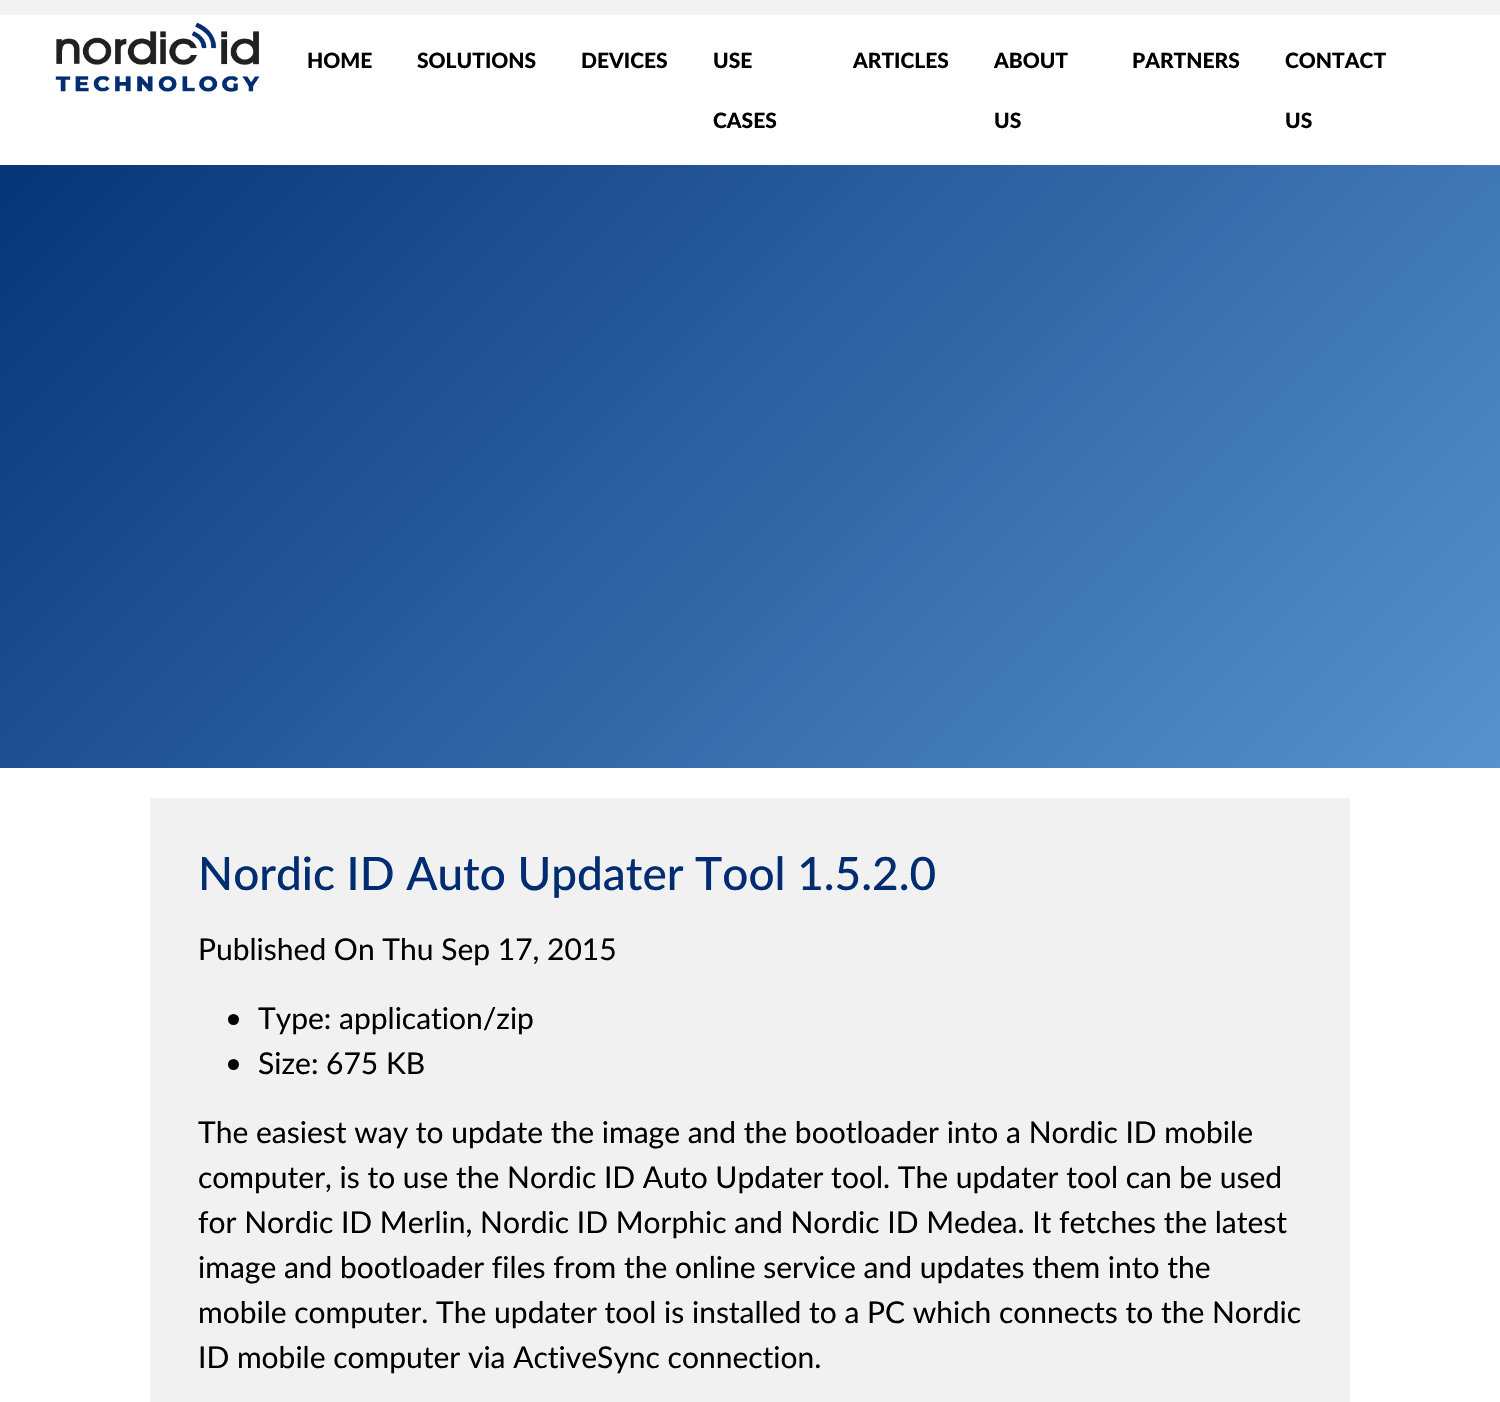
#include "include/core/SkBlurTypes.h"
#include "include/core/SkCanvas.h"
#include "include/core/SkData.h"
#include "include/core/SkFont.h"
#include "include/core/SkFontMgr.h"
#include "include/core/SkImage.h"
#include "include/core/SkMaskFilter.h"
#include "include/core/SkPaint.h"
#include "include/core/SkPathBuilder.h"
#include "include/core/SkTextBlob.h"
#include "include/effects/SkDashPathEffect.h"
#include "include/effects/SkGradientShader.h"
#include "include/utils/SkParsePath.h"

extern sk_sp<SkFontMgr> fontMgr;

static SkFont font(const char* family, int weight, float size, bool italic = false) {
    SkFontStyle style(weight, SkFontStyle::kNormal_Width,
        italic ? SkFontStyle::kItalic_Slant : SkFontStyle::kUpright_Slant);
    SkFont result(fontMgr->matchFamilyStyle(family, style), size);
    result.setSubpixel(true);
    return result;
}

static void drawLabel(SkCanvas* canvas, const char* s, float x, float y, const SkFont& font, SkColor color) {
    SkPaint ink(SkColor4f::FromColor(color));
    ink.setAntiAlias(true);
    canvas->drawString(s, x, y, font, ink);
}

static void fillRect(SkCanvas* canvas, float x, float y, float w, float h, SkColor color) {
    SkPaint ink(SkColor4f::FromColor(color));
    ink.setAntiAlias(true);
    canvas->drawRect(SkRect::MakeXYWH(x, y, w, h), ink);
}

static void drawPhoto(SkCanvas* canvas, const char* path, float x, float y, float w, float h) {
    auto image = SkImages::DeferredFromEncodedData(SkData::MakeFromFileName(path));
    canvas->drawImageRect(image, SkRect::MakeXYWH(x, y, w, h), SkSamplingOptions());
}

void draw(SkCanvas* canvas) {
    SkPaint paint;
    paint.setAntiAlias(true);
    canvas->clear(0xFFFFFFFF);
    fillRect(canvas, 0, 0, 1500, 15, 0xFFF2F2F2);
    drawPhoto(canvas, "assets/img1.png", 55, 22, 205, 70);
    SkFont font1 = font("Lato", 900, 21);
    drawLabel(canvas, "HOME", 307, 68, font1, 0xFF000000);
    drawLabel(canvas, "SOLUTIONS", 417, 68, font1, 0xFF000000);
    drawLabel(canvas, "DEVICES", 581, 68, font1, 0xFF000000);
    drawLabel(canvas, "USE", 713, 68, font1, 0xFF000000);
    drawLabel(canvas, "CASES", 713, 128, font1, 0xFF000000);
    drawLabel(canvas, "ARTICLES", 853, 68, font1, 0xFF000000);
    drawLabel(canvas, "ABOUT", 994, 68, font1, 0xFF000000);
    drawLabel(canvas, "US", 994, 128, font1, 0xFF000000);
    drawLabel(canvas, "PARTNERS", 1132, 68, font1, 0xFF000000);
    drawLabel(canvas, "CONTACT", 1285, 68, font1, 0xFF000000);
    drawLabel(canvas, "US", 1285, 128, font1, 0xFF000000);
    {
        const SkColor colors[] = {0xFF002D72, 0xFF5792CD};
        const float stops[] = {0, 1};
        const SkPoint ends[] = {{183, -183}, {1317, 951}};
        paint.setShader(SkGradientShader::MakeLinear(ends, colors, stops, 2, SkTileMode::kClamp));
        paint.setAlpha(255);
    }
    canvas->drawRect(SkRect::MakeXYWH(0, 165, 1500, 603), paint);
    fillRect(canvas, 150, 798, 1200, 604, 0xFFF1F1F1);
    SkFont font2 = font("Lato", 500, 45.9f);
    drawLabel(canvas, "Nordic ID Auto Updater Tool 1.5.2.0", 198, 890, font2, 0xFF002D72);
    SkFont font3 = font("Lato", 400, 30);
    drawLabel(canvas, "Published On Thu Sep 17, 2015", 198, 960, font3, 0xFF000000);
    paint.setShader(nullptr);
    paint.setColor(0xFF000000);
    canvas->drawCircle(233.5f, 1019.5f, 5.5f, paint);
    drawLabel(canvas, "Type: application/zip", 258, 1029, font3, 0xFF000000);
    canvas->drawCircle(233.5f, 1064.5f, 5.5f, paint);
    drawLabel(canvas, "Size: 675 KB", 258, 1074, font3, 0xFF000000);
    drawLabel(canvas, "The easiest way to update the image and the bootloader into a Nordic ID mobile", 198, 1143, font3, 0xFF000000);
    drawLabel(canvas, "computer, is to use the Nordic ID Auto Updater tool. The updater tool can be used", 198, 1188, font3, 0xFF000000);
    drawLabel(canvas, "for Nordic ID Merlin, Nordic ID Morphic and Nordic ID Medea. It fetches the latest", 198, 1233, font3, 0xFF000000);
    drawLabel(canvas, "image and bootloader files from the online service and updates them into the", 198, 1278, font3, 0xFF000000);
    drawLabel(canvas, "mobile computer. The updater tool is installed to a PC which connects to the Nordic", 198, 1323, font3, 0xFF000000);
    drawLabel(canvas, "ID mobile computer via ActiveSync connection.", 198, 1368, font3, 0xFF000000);
}
